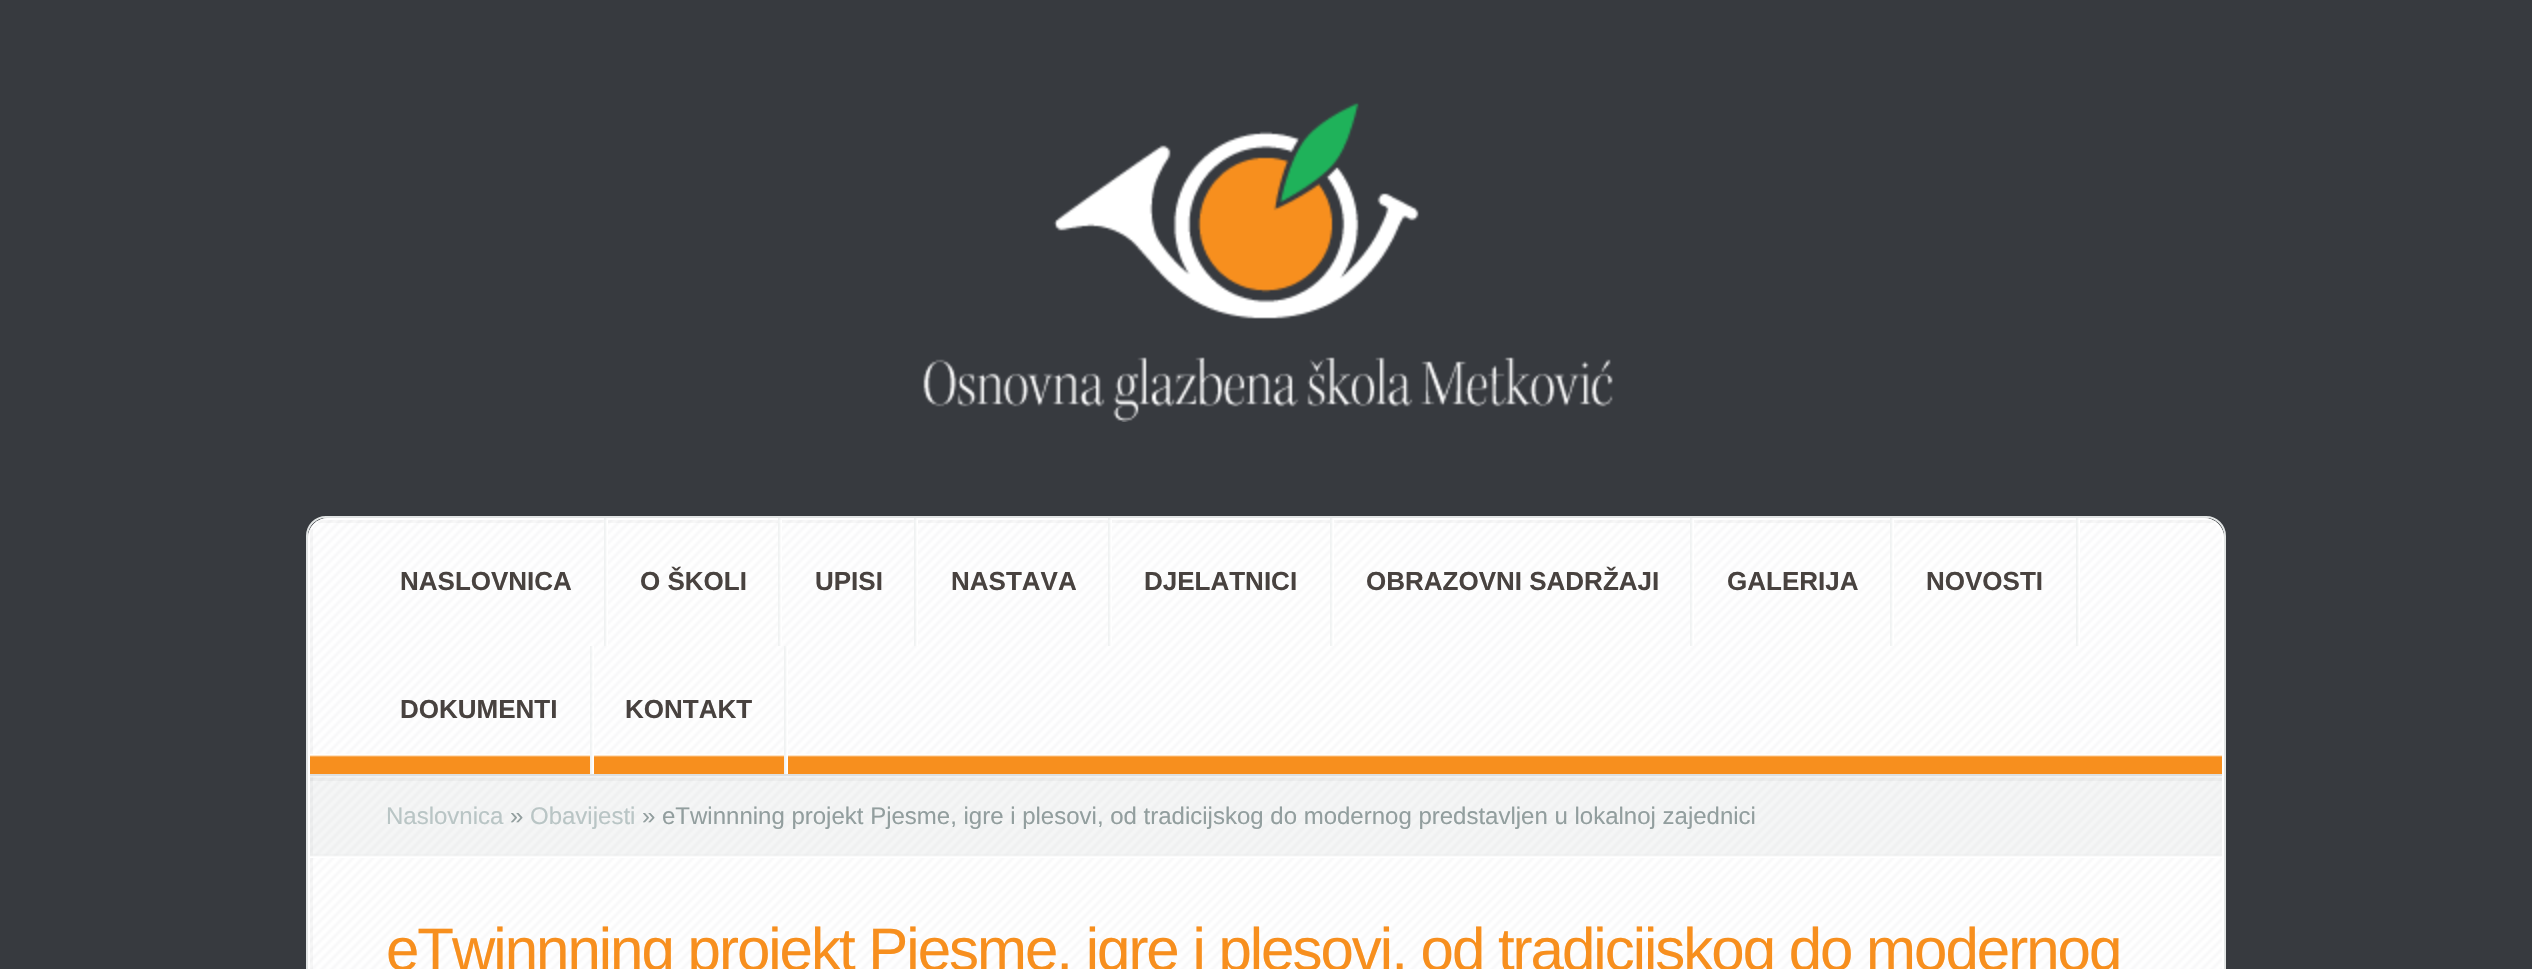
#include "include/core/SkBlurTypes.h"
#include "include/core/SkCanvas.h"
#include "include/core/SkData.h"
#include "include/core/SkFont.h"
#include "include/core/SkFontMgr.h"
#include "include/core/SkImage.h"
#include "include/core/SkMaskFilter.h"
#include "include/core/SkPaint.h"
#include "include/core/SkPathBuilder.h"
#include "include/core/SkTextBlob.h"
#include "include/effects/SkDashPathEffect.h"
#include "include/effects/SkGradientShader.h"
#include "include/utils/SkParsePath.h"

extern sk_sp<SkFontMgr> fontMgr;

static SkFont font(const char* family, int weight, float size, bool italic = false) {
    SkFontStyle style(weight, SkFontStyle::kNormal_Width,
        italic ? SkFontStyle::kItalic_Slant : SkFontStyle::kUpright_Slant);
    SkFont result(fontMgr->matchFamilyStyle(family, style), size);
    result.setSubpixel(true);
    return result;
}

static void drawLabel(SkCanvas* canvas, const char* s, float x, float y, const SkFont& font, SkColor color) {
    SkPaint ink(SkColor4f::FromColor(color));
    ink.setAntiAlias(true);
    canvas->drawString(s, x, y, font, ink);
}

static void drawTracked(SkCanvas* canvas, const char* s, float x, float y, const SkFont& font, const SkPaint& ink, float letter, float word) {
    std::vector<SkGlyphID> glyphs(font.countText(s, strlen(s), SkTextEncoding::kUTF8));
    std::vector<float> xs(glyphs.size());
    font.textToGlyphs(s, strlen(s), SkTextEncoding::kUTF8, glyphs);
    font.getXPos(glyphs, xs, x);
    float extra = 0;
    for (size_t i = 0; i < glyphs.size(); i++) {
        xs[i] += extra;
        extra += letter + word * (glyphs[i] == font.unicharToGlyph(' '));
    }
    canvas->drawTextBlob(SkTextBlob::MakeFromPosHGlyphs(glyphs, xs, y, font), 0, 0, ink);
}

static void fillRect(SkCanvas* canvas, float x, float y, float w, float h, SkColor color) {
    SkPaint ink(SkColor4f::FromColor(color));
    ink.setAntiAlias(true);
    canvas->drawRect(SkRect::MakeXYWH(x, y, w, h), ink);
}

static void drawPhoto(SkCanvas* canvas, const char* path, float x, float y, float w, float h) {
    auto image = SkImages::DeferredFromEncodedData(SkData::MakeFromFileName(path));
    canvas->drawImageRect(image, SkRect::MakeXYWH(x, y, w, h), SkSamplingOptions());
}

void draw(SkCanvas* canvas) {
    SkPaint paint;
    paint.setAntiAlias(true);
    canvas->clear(0xFF373A3F);
    drawPhoto(canvas, "assets/img1.png", 923, 102, 690, 320);
    paint.setStroke(true);
    paint.setStrokeWidth(2);
    paint.setColor(0xFFE2E5E5);
    canvas->drawRoundRect(SkRect::MakeXYWH(307, 517, 1918, 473), 19, 19, paint);
    drawPhoto(canvas, "assets/img2.png", 308, 518, 1916, 451);
    paint.setColor(0xFFFFFFFF);
    canvas->drawRoundRect(SkRect::MakeXYWH(309, 519, 1914, 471), 19, 19, paint);
    fillRect(canvas, 310, 529, 3, 440, 0x08000000);
    fillRect(canvas, 318, 520, 1896, 3, 0x08000000);
    drawPhoto(canvas, "assets/img3.png", 310, 754, 1912, 20);
    drawPhoto(canvas, "assets/img4.png", 604, 518, 4, 128);
    SkFont font1 = font("Liberation Sans", 700, 26);
    drawLabel(canvas, "NASLOVNICA", 400, 590, font1, 0xFF48423F);
    drawPhoto(canvas, "assets/img4.png", 778, 518, 4, 128);
    drawLabel(canvas, "O ŠKOLI", 640, 590, font1, 0xFF48423F);
    drawPhoto(canvas, "assets/img4.png", 914, 518, 4, 128);
    drawLabel(canvas, "UPISI", 815, 590, font1, 0xFF48423F);
    drawPhoto(canvas, "assets/img4.png", 1108, 518, 4, 128);
    drawLabel(canvas, "NASTAVA", 951, 590, font1, 0xFF48423F);
    drawPhoto(canvas, "assets/img4.png", 1330, 518, 4, 128);
    drawLabel(canvas, "DJELATNICI", 1144, 590, font1, 0xFF48423F);
    drawPhoto(canvas, "assets/img4.png", 1690, 518, 4, 128);
    drawLabel(canvas, "OBRAZOVNI SADRŽAJI", 1366, 590, font1, 0xFF48423F);
    drawPhoto(canvas, "assets/img4.png", 1890, 518, 4, 128);
    drawLabel(canvas, "GALERIJA", 1727, 590, font1, 0xFF48423F);
    drawPhoto(canvas, "assets/img4.png", 2076, 518, 4, 128);
    drawLabel(canvas, "NOVOSTI", 1926, 590, font1, 0xFF48423F);
    drawPhoto(canvas, "assets/img4.png", 590, 646, 4, 128);
    drawLabel(canvas, "DOKUMENTI", 400, 718, font1, 0xFF48423F);
    drawPhoto(canvas, "assets/img4.png", 784, 646, 4, 128);
    drawLabel(canvas, "KONTAKT", 625, 718, font1, 0xFF48423F);
    drawPhoto(canvas, "assets/img5.png", 310, 776, 1912, 82);
    fillRect(canvas, 310, 778, 1912, 3, 0x08000000);
    fillRect(canvas, 310, 774, 1912, 2, 0xFFDEE0E0);
    SkFont font2 = font("Liberation Sans", 400, 24);
    drawLabel(canvas, "Naslovnica", 386, 824, font2, 0xFFB9C5C5);
    drawLabel(canvas, "»", 510, 824, font2, 0xFF929E9E);
    drawLabel(canvas, "Obavijesti", 530, 824, font2, 0xFFB9C5C5);
    drawLabel(canvas, "» eTwinnning projekt Pjesme, igre i plesovi, od tradicijskog do modernog predstavljen u lokalnoj zajednici", 642, 824, font2, 0xFF929E9E);
    SkFont font3 = font("Liberation Sans", 400, 60);
    paint.setStroke(false);
    paint.setColor(0xFFF78F1E);
    drawTracked(canvas, "eTwinnning projekt Pjesme, igre i plesovi, od tradicijskog do modernog", 386, 970, font3, paint, -2, 0);
}
